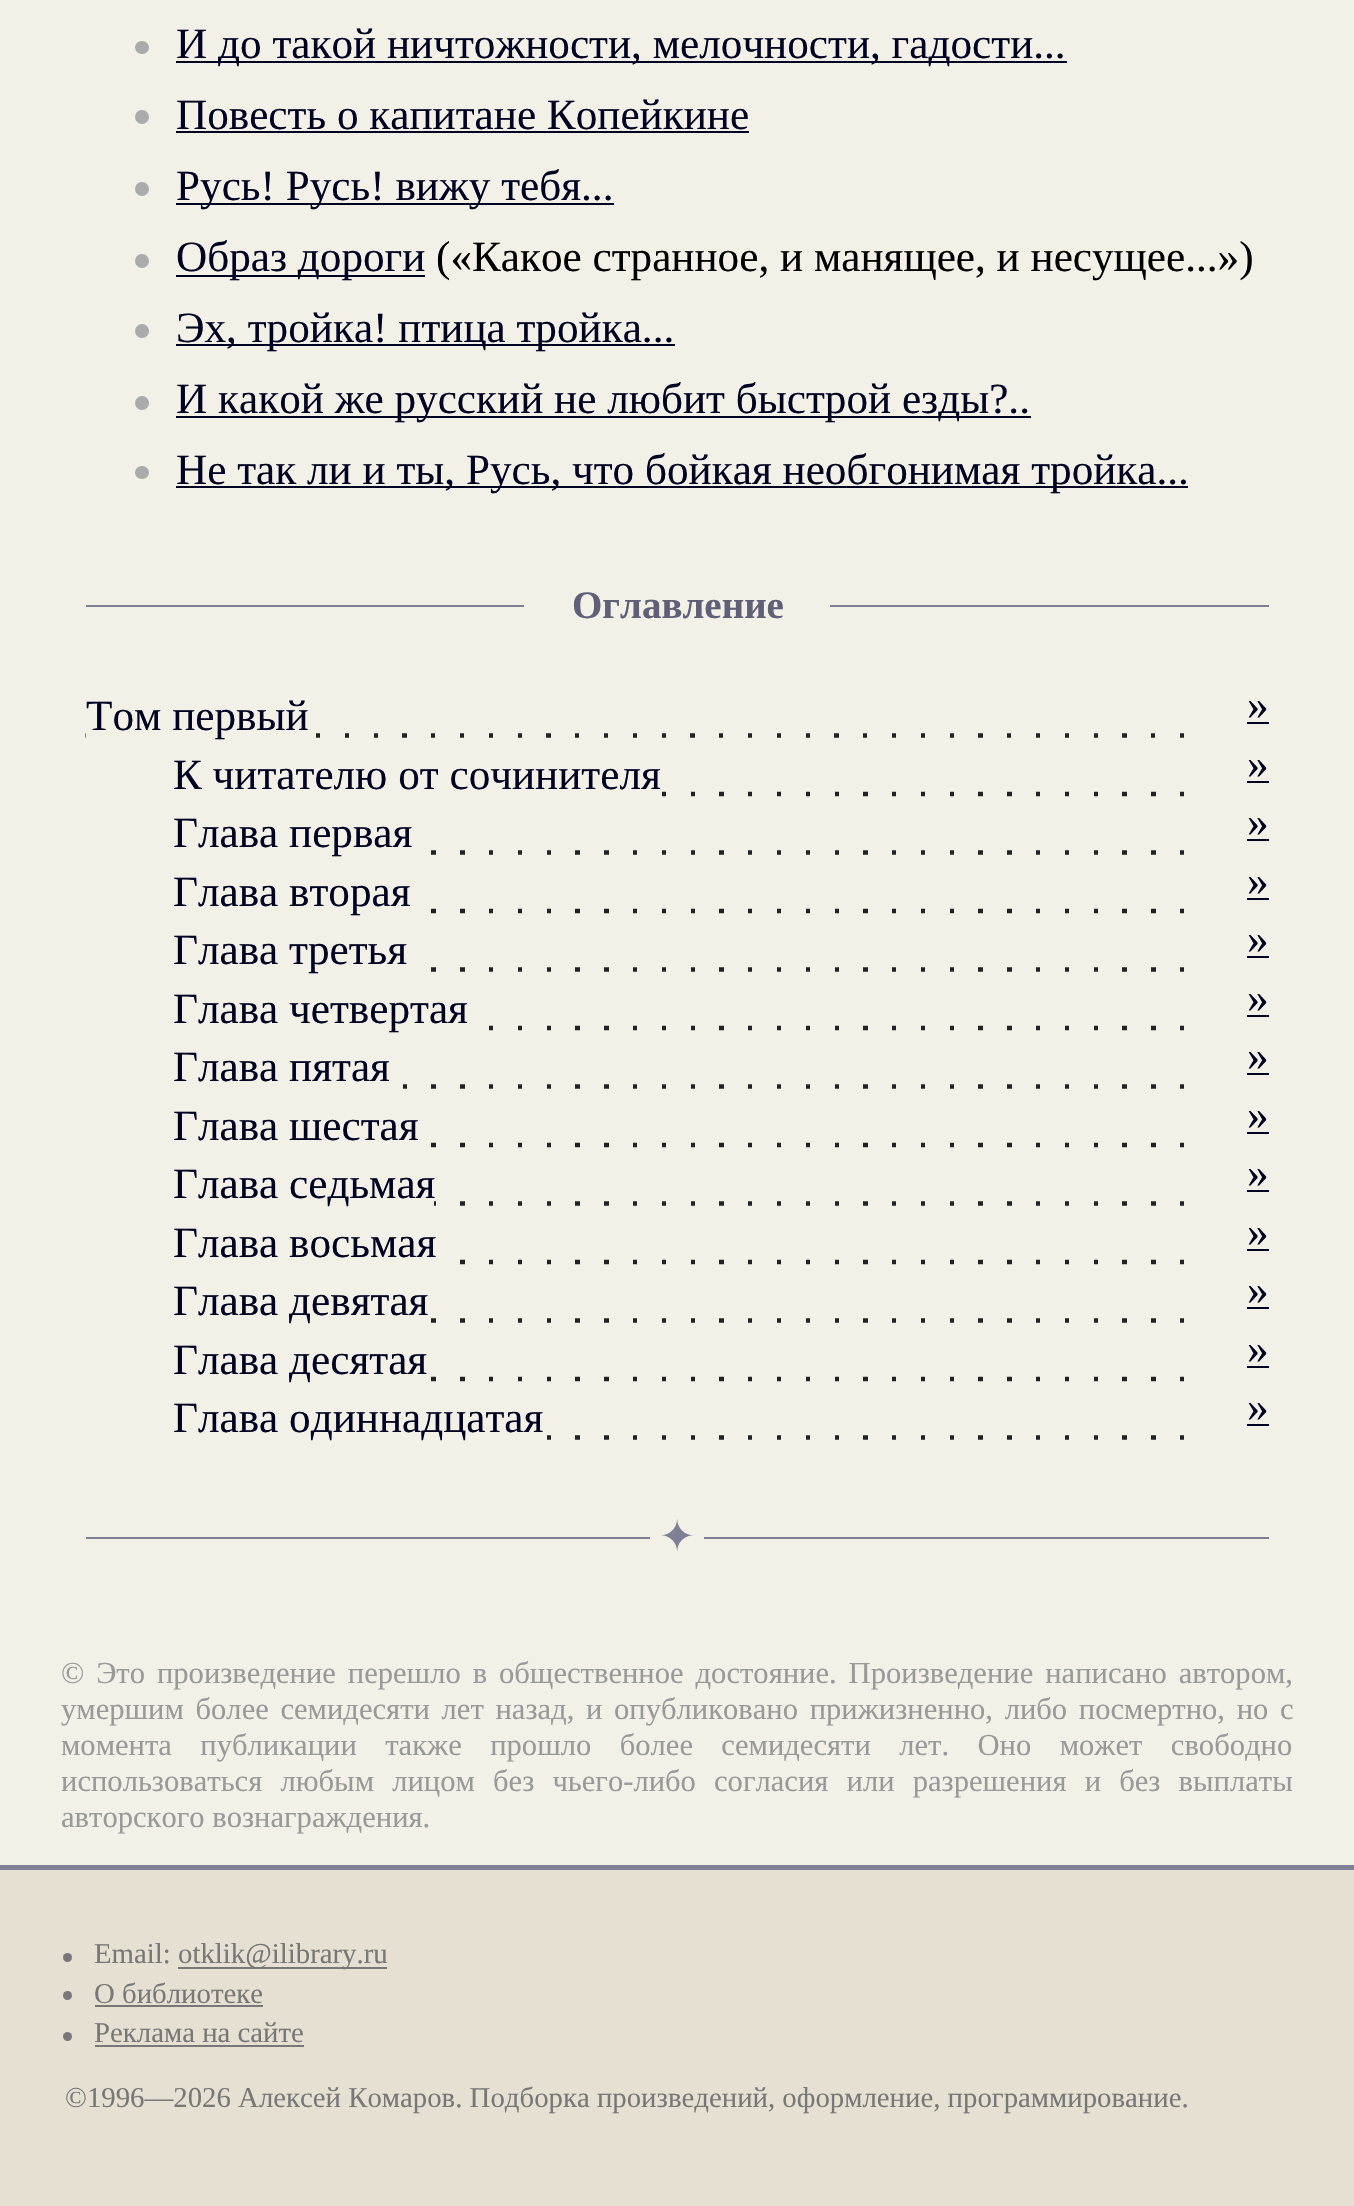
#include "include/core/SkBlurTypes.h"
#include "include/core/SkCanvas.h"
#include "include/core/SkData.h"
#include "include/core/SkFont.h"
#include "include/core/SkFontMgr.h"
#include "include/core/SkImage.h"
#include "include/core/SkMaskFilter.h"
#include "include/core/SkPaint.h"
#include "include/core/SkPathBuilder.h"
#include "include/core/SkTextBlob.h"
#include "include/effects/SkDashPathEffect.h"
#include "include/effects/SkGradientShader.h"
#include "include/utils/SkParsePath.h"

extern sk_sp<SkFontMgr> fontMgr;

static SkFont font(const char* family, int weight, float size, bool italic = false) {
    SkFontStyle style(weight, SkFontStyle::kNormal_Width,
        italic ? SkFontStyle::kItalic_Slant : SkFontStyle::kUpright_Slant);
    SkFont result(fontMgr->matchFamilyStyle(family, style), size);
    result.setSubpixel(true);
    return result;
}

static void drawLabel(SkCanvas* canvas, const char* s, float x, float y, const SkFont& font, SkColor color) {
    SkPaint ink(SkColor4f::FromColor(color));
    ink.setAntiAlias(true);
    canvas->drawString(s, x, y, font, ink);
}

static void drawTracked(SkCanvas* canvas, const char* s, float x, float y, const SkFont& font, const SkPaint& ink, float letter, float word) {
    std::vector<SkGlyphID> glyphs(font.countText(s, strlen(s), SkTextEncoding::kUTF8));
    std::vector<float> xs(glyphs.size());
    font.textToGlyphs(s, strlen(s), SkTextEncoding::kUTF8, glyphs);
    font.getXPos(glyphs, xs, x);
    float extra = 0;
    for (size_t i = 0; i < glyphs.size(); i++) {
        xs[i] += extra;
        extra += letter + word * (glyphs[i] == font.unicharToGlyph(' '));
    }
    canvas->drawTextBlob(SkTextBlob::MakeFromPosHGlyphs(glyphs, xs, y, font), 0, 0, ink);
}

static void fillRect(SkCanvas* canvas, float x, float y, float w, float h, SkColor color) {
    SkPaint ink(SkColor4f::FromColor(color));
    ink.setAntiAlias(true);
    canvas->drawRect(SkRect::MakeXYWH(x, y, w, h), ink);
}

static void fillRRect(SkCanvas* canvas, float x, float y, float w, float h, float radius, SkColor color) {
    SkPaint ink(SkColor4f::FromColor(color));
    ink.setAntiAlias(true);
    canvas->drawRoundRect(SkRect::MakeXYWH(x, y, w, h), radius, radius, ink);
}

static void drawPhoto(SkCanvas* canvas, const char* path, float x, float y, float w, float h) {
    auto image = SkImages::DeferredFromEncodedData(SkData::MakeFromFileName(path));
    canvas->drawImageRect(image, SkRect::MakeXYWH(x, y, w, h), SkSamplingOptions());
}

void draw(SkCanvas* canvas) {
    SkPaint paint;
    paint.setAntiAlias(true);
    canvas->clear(0xFFF3F0E7);
    fillRRect(canvas, 135, 41, 14, 13, 6.5f, 0xFFAAAAAA);
    fillRect(canvas, 176, 61, 891, 2, 0xFF000222);
    SkFont font1 = font("Liberation Serif", 400, 43.2f);
    drawLabel(canvas, "И до такой ничтожности, мелочности, гадости...", 176, 58, font1, 0xFF000222);
    paint.setColor(0xFFAAAAAA);
    canvas->drawCircle(142, 117, 7, paint);
    drawLabel(canvas, "Повесть о капитане Копейкине", 176, 129, font1, 0xFF000222);
    fillRect(canvas, 176, 131, 573, 2, 0xFF000222);
    canvas->drawCircle(142, 189, 7, paint);
    fillRect(canvas, 176, 203, 438, 2, 0xFF000222);
    drawLabel(canvas, "Русь! Русь! вижу тебя...", 176, 200, font1, 0xFF000222);
    canvas->drawCircle(142, 261, 7, paint);
    fillRect(canvas, 176, 275, 249, 2, 0xFF000222);
    drawLabel(canvas, "Образ дороги", 176, 271, font1, 0xFF000222);
    drawLabel(canvas, "(«Какое странное, и манящее, и несущее...»)", 436, 271, font1, 0xFF000000);
    canvas->drawCircle(142, 331, 7, paint);
    fillRect(canvas, 176, 344, 499, 2, 0xFF000222);
    drawLabel(canvas, "Эх, тройка! птица тройка...", 176, 342, font1, 0xFF000222);
    canvas->drawCircle(142, 403, 7, paint);
    fillRect(canvas, 176, 416, 855, 2, 0xFF000222);
    drawLabel(canvas, "И какой же русский не любит быстрой езды?..", 176, 413, font1, 0xFF000222);
    fillRRect(canvas, 135, 466, 14, 13, 6.5f, 0xFFAAAAAA);
    fillRect(canvas, 176, 486, 1012, 2, 0xFF000222);
    drawLabel(canvas, "Не так ли и ты, Русь, что бойкая необгонимая тройка...", 176, 484, font1, 0xFF000222);
    fillRect(canvas, 86, 605, 1183, 2, 0xFF7F7F96);
    fillRect(canvas, 524, 605, 306, 2, 0xFFF3F0E7);
    SkFont font2 = font("Liberation Serif", 700, 39);
    drawLabel(canvas, "Оглавление", 572, 618, font2, 0xFF5F5F77);
    drawPhoto(canvas, "assets/img1.png", 85, 733, 1099, 5);
    fillRect(canvas, 86, 733, 205, 5, 0xFFF3F0E7);
    drawLabel(canvas, "Том первый", 86, 730, font1, 0xFF000222);
    drawLabel(canvas, "»", 1247, 719, font1, 0xFF000222);
    fillRect(canvas, 1247, 722, 22, 2, 0xFF000222);
    drawPhoto(canvas, "assets/img2.png", 662, 791, 522, 6);
    drawLabel(canvas, "К читателю от сочинителя", 173, 789, font1, 0xFF000222);
    drawLabel(canvas, "»", 1247, 778, font1, 0xFF000222);
    fillRect(canvas, 1247, 781, 22, 2, 0xFF000222);
    drawPhoto(canvas, "assets/img3.png", 431, 850, 753, 5);
    drawLabel(canvas, "Глава первая", 173, 847, font1, 0xFF000222);
    drawLabel(canvas, "»", 1247, 836, font1, 0xFF000222);
    fillRect(canvas, 1247, 839, 22, 2, 0xFF000222);
    drawPhoto(canvas, "assets/img4.png", 431, 908, 753, 6);
    drawLabel(canvas, "Глава вторая", 173, 906, font1, 0xFF000222);
    drawLabel(canvas, "»", 1247, 895, font1, 0xFF000222);
    fillRect(canvas, 1247, 898, 22, 2, 0xFF000222);
    drawPhoto(canvas, "assets/img5.png", 431, 967, 753, 5);
    drawLabel(canvas, "Глава третья", 173, 964, font1, 0xFF000222);
    drawLabel(canvas, "»", 1247, 953, font1, 0xFF000222);
    fillRect(canvas, 1247, 956, 22, 2, 0xFF000222);
    drawPhoto(canvas, "assets/img6.png", 489, 1025, 695, 6);
    drawLabel(canvas, "Глава четвертая", 173, 1023, font1, 0xFF000222);
    drawLabel(canvas, "»", 1247, 1012, font1, 0xFF000222);
    fillRect(canvas, 1247, 1015, 22, 2, 0xFF000222);
    drawPhoto(canvas, "assets/img7.png", 403, 1084, 781, 5);
    drawLabel(canvas, "Глава пятая", 173, 1081, font1, 0xFF000222);
    drawLabel(canvas, "»", 1247, 1070, font1, 0xFF000222);
    fillRect(canvas, 1247, 1073, 22, 2, 0xFF000222);
    drawPhoto(canvas, "assets/img4.png", 431, 1142, 753, 6);
    drawLabel(canvas, "Глава шестая", 173, 1140, font1, 0xFF000222);
    drawLabel(canvas, "»", 1247, 1129, font1, 0xFF000222);
    fillRect(canvas, 1247, 1132, 22, 2, 0xFF000222);
    drawPhoto(canvas, "assets/img8.png", 434, 1201, 750, 5);
    drawLabel(canvas, "Глава седьмая", 173, 1198, font1, 0xFF000222);
    drawLabel(canvas, "»", 1247, 1187, font1, 0xFF000222);
    fillRect(canvas, 1247, 1190, 22, 2, 0xFF000222);
    drawPhoto(canvas, "assets/img9.png", 460, 1259, 724, 6);
    drawLabel(canvas, "Глава восьмая", 173, 1257, font1, 0xFF000222);
    drawLabel(canvas, "»", 1247, 1246, font1, 0xFF000222);
    fillRect(canvas, 1247, 1249, 22, 2, 0xFF000222);
    drawPhoto(canvas, "assets/img3.png", 431, 1318, 753, 5);
    drawLabel(canvas, "Глава девятая", 173, 1315, font1, 0xFF000222);
    drawLabel(canvas, "»", 1247, 1304, font1, 0xFF000222);
    fillRect(canvas, 1247, 1307, 22, 2, 0xFF000222);
    drawPhoto(canvas, "assets/img4.png", 431, 1376, 753, 6);
    drawLabel(canvas, "Глава десятая", 173, 1374, font1, 0xFF000222);
    drawLabel(canvas, "»", 1247, 1363, font1, 0xFF000222);
    fillRect(canvas, 1247, 1366, 22, 2, 0xFF000222);
    drawPhoto(canvas, "assets/img10.png", 547, 1435, 637, 5);
    drawLabel(canvas, "Глава одиннадцатая", 173, 1432, font1, 0xFF000222);
    drawLabel(canvas, "»", 1247, 1421, font1, 0xFF000222);
    fillRect(canvas, 1247, 1424, 22, 2, 0xFF000222);
    fillRect(canvas, 86, 1537, 1183, 2, 0xFF7F7F96);
    fillRect(canvas, 650, 1537, 54, 2, 0xFFF3F0E7);
    SkFont font3 = font("DejaVu Sans", 400, 43.2f);
    drawLabel(canvas, "✦", 659, 1551, font3, 0xFF7F7F96);
    SkFont font4 = font("Liberation Serif", 400, 30.6f);
    paint.setColor(0xFF999999);
    drawTracked(canvas, "© Это произведение перешло в общественное достояние. Произведение написано автором,", 61, 1683, font4, paint, 0, 4.25f);
    drawTracked(canvas, "умершим более семидесяти лет назад, и опубликовано прижизненно, либо посмертно, но с", 61, 1719, font4, paint, 0, 4);
    drawTracked(canvas, "момента публикации также прошло более семидесяти лет. Оно может свободно", 61, 1755, font4, paint, 0, 20.75f);
    drawTracked(canvas, "использоваться любым лицом без чьего-либо согласия или разрешения и без выплаты", 61, 1791, font4, paint, 0, 10.5f);
    drawLabel(canvas, "авторского вознаграждения.", 61, 1827, font4, 0xFF999999);
    fillRect(canvas, 0, 1870, 1354, 336, 0xFFE6E0D3);
    fillRect(canvas, 0, 1865, 1354, 5, 0xFF7F7F96);
    paint.setColor(0xFF777777);
    canvas->drawCircle(67.5f, 1957.5f, 4.5f, paint);
    SkFont font5 = font("Liberation Serif", 400, 28.8f);
    drawLabel(canvas, "Email:", 94, 1963, font5, 0xFF777777);
    fillRect(canvas, 178, 1967, 209, 2, 0xFF777777);
    drawLabel(canvas, "otklik@ilibrary.ru", 178, 1963, font5, 0xFF777777);
    canvas->drawCircle(67.5f, 1995.5f, 4.5f, paint);
    drawLabel(canvas, "О библиотеке", 94, 2003, font5, 0xFF777777);
    fillRect(canvas, 95, 2005, 168, 2, 0xFF777777);
    canvas->drawCircle(67.5f, 2036.5f, 4.5f, paint);
    drawLabel(canvas, "Реклама на сайте", 94, 2042, font5, 0xFF777777);
    fillRect(canvas, 95, 2045, 209, 2, 0xFF777777);
    drawLabel(canvas, "©1996—2026 Алексей Комаров. Подборка произведений, оформление, программирование.", 65, 2107, font5, 0xFF777777);
}
